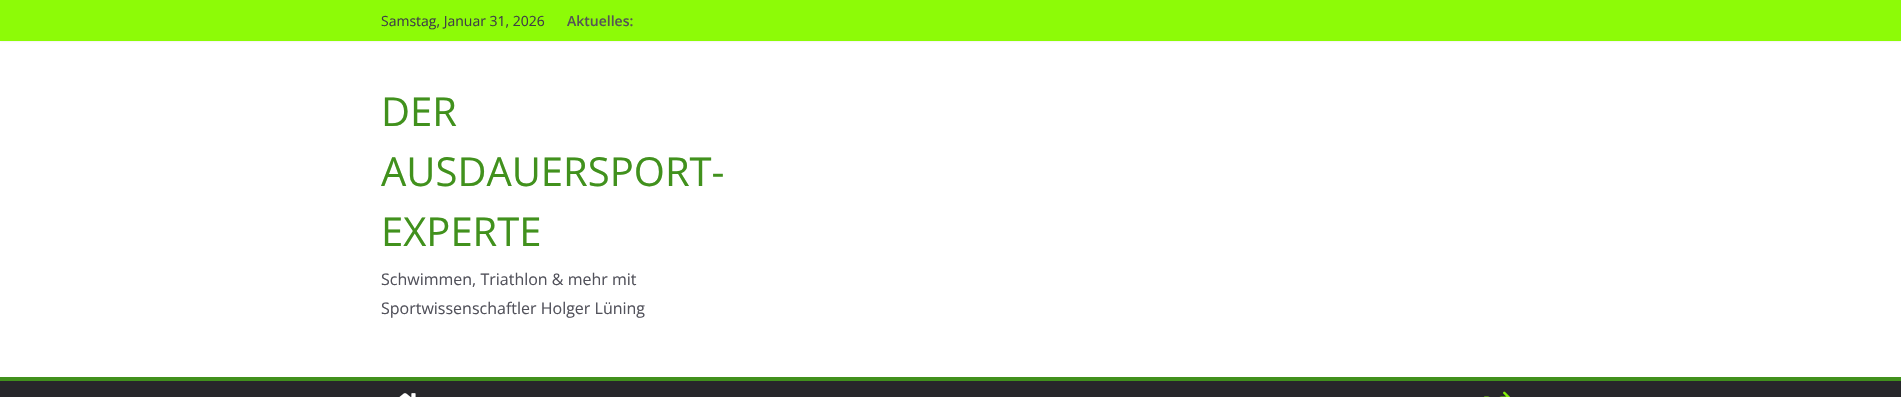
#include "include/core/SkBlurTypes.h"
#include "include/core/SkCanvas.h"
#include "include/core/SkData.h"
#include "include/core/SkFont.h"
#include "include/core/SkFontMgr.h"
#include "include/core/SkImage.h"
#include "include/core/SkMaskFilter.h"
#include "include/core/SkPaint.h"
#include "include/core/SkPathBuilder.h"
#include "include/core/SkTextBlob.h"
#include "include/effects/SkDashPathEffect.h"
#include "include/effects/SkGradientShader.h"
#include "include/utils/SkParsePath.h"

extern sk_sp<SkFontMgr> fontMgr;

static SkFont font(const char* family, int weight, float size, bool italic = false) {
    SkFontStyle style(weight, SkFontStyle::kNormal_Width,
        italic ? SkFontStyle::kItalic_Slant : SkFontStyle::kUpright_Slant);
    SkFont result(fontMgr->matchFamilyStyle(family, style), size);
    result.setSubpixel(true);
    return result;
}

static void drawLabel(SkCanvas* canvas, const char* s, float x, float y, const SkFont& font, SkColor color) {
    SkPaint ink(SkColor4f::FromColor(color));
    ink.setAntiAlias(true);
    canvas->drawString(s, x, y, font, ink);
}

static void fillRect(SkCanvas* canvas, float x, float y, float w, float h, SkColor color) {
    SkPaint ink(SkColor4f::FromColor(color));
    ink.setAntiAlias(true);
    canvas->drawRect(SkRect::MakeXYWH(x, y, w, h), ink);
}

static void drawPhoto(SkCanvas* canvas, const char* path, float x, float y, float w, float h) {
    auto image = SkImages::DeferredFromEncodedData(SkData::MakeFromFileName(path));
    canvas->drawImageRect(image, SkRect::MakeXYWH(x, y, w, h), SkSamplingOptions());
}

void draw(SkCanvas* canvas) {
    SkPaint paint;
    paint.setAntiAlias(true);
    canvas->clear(0xFFFFFFFF);
    paint.setColor(0x1A000000);
    paint.setMaskFilter(SkMaskFilter::MakeBlur(kNormal_SkBlurStyle, 1));
    canvas->drawRect(SkRect::MakeXYWH(0, 0, 1901, 41), paint);
    paint.setMaskFilter(nullptr);
    fillRect(canvas, 0, 0, 1901, 41, 0xFF8DFB07);
    SkFont font1 = font("Open Sans", 400, 14);
    drawLabel(canvas, "Samstag, Januar 31, 2026", 381, 26, font1, 0xFF3F3F46);
    SkFont font2 = font("Open Sans", 600, 14);
    drawLabel(canvas, "Aktuelles:", 567, 26, font2, 0xFF555555);
    SkFont font3 = font("Open Sans", 400, 40);
    drawLabel(canvas, "DER", 381, 126, font3, 0xFF41911D);
    drawLabel(canvas, "AUSDAUERSPORT-", 381, 186, font3, 0xFF41911D);
    drawLabel(canvas, "EXPERTE", 381, 246, font3, 0xFF41911D);
    SkFont font4 = font("Open Sans", 400, 16);
    drawLabel(canvas, "Schwimmen, Triathlon & mehr mit", 381, 285, font4, 0xFF52525B);
    drawLabel(canvas, "Sportwissenschaftler Holger Lüning", 381, 314, font4, 0xFF52525B);
    fillRect(canvas, 0, 381, 1901, 16, 0xFF27272A);
    fillRect(canvas, 0, 377, 1901, 4, 0xFF41911D);
    drawPhoto(canvas, "assets/img1.png", 399, 393, 17, 4);
    drawPhoto(canvas, "assets/img2.png", 1484, 391, 26, 6);
}
